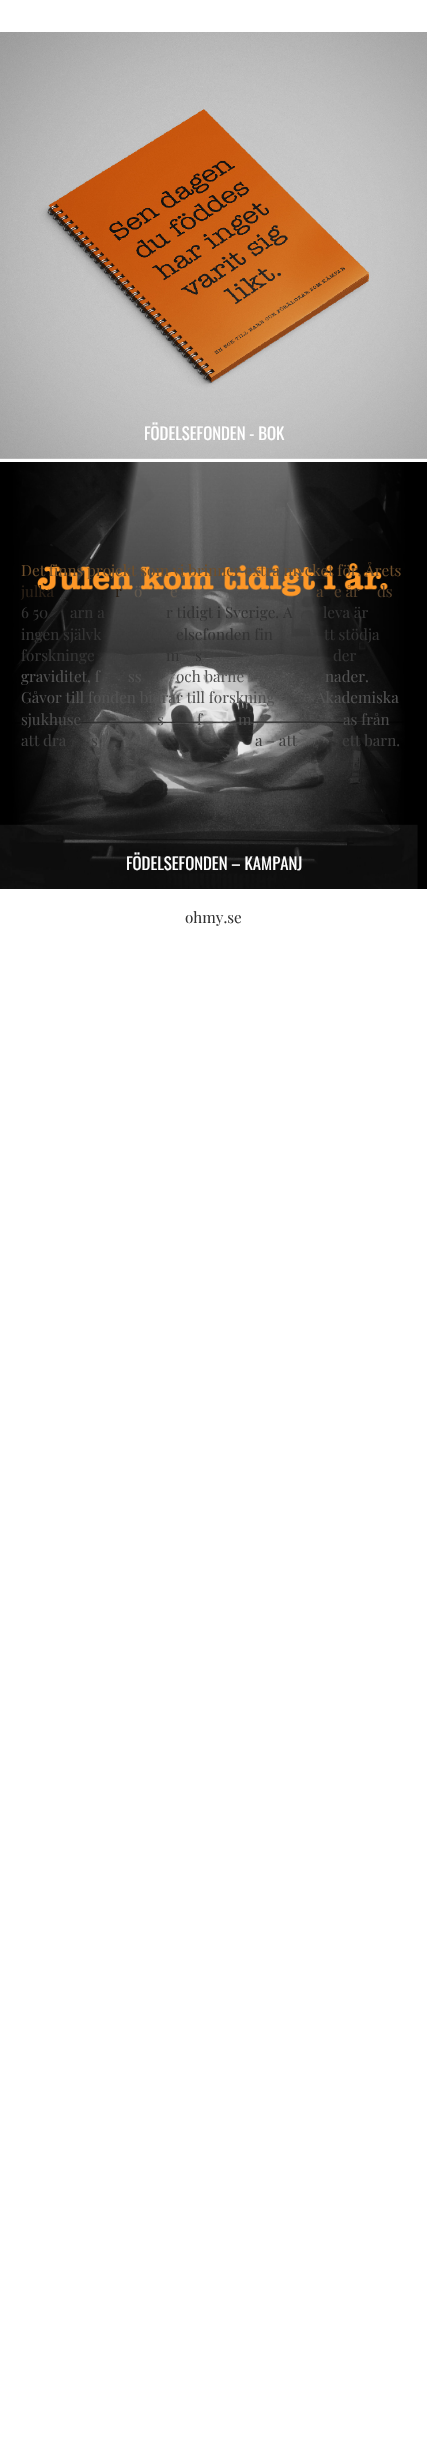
#include "include/core/SkBlurTypes.h"
#include "include/core/SkCanvas.h"
#include "include/core/SkData.h"
#include "include/core/SkFont.h"
#include "include/core/SkFontMgr.h"
#include "include/core/SkImage.h"
#include "include/core/SkMaskFilter.h"
#include "include/core/SkPaint.h"
#include "include/core/SkPathBuilder.h"
#include "include/core/SkTextBlob.h"
#include "include/effects/SkDashPathEffect.h"
#include "include/effects/SkGradientShader.h"
#include "include/utils/SkParsePath.h"

extern sk_sp<SkFontMgr> fontMgr;

static SkFont font(const char* family, int weight, float size, bool italic = false) {
    SkFontStyle style(weight, SkFontStyle::kNormal_Width,
        italic ? SkFontStyle::kItalic_Slant : SkFontStyle::kUpright_Slant);
    SkFont result(fontMgr->matchFamilyStyle(family, style), size);
    result.setSubpixel(true);
    return result;
}

static void drawLabel(SkCanvas* canvas, const char* s, float x, float y, const SkFont& font, SkColor color) {
    SkPaint ink(SkColor4f::FromColor(color));
    ink.setAntiAlias(true);
    canvas->drawString(s, x, y, font, ink);
}

static void drawPhoto(SkCanvas* canvas, const char* path, float x, float y, float w, float h) {
    auto image = SkImages::DeferredFromEncodedData(SkData::MakeFromFileName(path));
    canvas->drawImageRect(image, SkRect::MakeXYWH(x, y, w, h), SkSamplingOptions());
}

void draw(SkCanvas* canvas) {
    SkPaint paint;
    paint.setAntiAlias(true);
    canvas->clear(0xFFFFFFFF);
    drawPhoto(canvas, "assets/img1.png", 0, 32, 427, 427);
    SkFont font1 = font("Oswald", 400, 16.75f);
    drawLabel(canvas, "FÖDELSEFONDEN - BOK", 144, 440, font1, 0xFFFFFFFF);
    drawPhoto(canvas, "assets/img2.png", 0, 462, 427, 427);
    SkFont font2 = font("Playfair Display", 400, 15.2f);
    drawLabel(canvas, "Det finns projekt som vi brinner extra mycket för. Årets", 21, 576, font2, 0xFF6E4E2A);
    drawLabel(canvas, "julka", 21, 597, font2, 0xFF291F15);
    drawLabel(canvas, "r", 115, 597, font2, 0xFF291F15);
    drawLabel(canvas, "ö", 134, 597, font2, 0xFF63594D);
    drawLabel(canvas, "e", 170, 597, font2, 0xFF63594D);
    drawLabel(canvas, "a", 316, 597, font2, 0xFF543F29);
    drawLabel(canvas, "e år", 334, 597, font2, 0xFF543F29);
    drawLabel(canvas, "ds", 377, 597, font2, 0xFF543F29);
    drawLabel(canvas, "6 50", 21, 618, font2, 0xFF333333);
    drawLabel(canvas, "arn a", 70, 618, font2, 0xFF333333);
    drawLabel(canvas, "r tidigt i Sverige. A", 166, 618, font2, 0xFF333333);
    drawLabel(canvas, "leva är", 323, 618, font2, 0xFF333333);
    drawLabel(canvas, "ingen självk", 21, 640, font2, 0xFF333333);
    drawLabel(canvas, "elsefonden fin", 176, 640, font2, 0xFF333333);
    drawLabel(canvas, "tt stödja", 324, 640, font2, 0xFF333333);
    drawLabel(canvas, "forskninge", 21, 661, font2, 0xFF333333);
    drawLabel(canvas, "m", 166, 661, font2, 0xFF333333);
    drawLabel(canvas, "s", 195, 661, font2, 0xFF333333);
    drawLabel(canvas, "der", 333, 661, font2, 0xFF333333);
    drawLabel(canvas, "graviditet, f", 21, 682, font2, 0xFF525252);
    drawLabel(canvas, "ss", 128, 682, font2, 0xFF525252);
    drawLabel(canvas, "och barne", 176, 682, font2, 0xFF525252);
    drawLabel(canvas, "nader.", 325, 682, font2, 0xFF525252);
    drawLabel(canvas, "Gåvor till fonden bidrar till forskning", 21, 703, font2, 0xFF525252);
    drawLabel(canvas, "Akademiska", 316, 703, font2, 0xFF525252);
    drawLabel(canvas, "sjukhuse", 21, 725, font2, 0xFF4B4B4B);
    drawLabel(canvas, "s", 157, 725, font2, 0xFF4B4B4B);
    drawLabel(canvas, "f", 197, 725, font2, 0xFF4B4B4B);
    drawLabel(canvas, "m", 238, 725, font2, 0xFF4B4B4B);
    drawLabel(canvas, "as från", 343, 725, font2, 0xFF4B4B4B);
    drawLabel(canvas, "att dra", 21, 746, font2, 0xFF3E3E3E);
    drawLabel(canvas, "s", 91, 746, font2, 0xFF3E3E3E);
    drawLabel(canvas, "a – att", 255, 746, font2, 0xFF3E3E3E);
    drawLabel(canvas, "ett barn.", 342, 746, font2, 0xFF3E3E3E);
    drawLabel(canvas, "FÖDELSEFONDEN – KAMPANJ", 126, 870, font1, 0xFFFFFFFF);
    drawLabel(canvas, "ohmy.se", 185, 923, font2, 0xFF333333);
}
